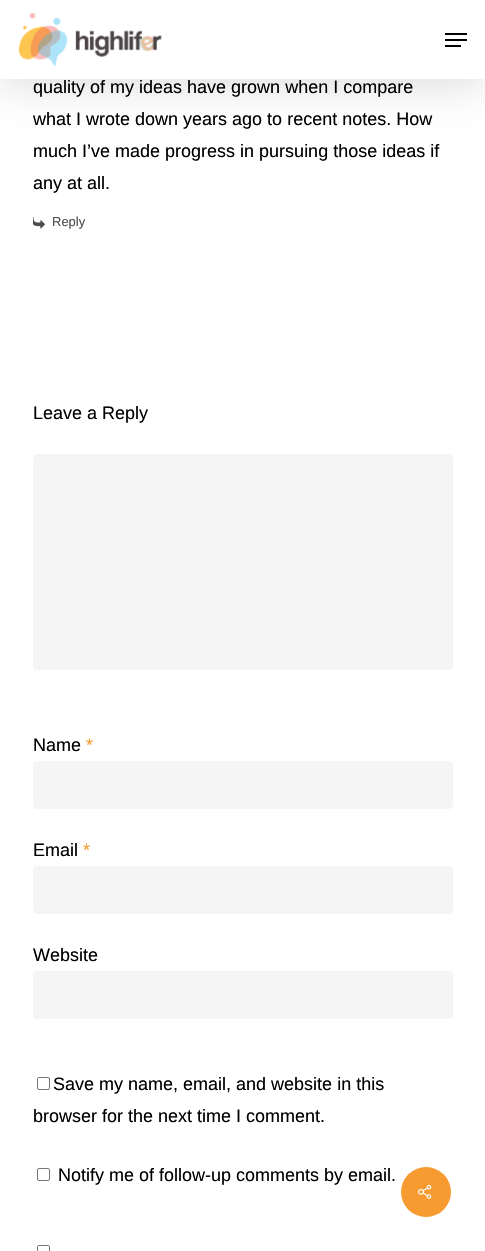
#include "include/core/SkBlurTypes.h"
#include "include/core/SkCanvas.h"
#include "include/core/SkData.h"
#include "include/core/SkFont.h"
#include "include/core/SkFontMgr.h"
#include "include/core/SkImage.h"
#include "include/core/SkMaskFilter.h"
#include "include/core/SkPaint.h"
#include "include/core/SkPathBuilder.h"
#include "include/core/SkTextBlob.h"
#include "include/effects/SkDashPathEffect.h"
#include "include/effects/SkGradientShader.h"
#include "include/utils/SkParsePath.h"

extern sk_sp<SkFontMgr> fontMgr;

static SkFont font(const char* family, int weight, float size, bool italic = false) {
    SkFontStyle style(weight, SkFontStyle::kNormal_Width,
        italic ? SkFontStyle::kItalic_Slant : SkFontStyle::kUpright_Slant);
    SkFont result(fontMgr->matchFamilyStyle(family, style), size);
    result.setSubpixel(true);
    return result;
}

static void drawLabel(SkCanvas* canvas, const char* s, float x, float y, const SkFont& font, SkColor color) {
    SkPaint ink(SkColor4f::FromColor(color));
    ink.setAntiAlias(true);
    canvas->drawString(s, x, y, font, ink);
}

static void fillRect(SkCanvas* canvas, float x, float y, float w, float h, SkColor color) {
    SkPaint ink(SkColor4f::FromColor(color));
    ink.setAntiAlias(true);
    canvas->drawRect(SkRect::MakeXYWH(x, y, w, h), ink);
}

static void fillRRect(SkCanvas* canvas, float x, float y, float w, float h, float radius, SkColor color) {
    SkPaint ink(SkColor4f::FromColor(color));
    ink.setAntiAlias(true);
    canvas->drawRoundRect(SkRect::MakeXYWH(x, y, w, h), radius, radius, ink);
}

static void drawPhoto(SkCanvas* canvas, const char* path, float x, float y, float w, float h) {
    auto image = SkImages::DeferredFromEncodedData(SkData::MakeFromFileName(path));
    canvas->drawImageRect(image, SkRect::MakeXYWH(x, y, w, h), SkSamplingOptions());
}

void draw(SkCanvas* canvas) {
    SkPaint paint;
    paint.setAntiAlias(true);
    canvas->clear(0xFFFFFFFF);
    paint.setColor(0x26000000);
    paint.setMaskFilter(SkMaskFilter::MakeBlur(kNormal_SkBlurStyle, 22.5f));
    canvas->drawRect(SkRect::MakeXYWH(0, 3, 485, 79), paint);
    paint.setMaskFilter(nullptr);
    fillRect(canvas, 0, 0, 485, 79, 0xFFFFFFFF);
    drawPhoto(canvas, "assets/img1.png", 18, 13, 144, 54);
    fillRect(canvas, 445, 33, 22, 2, 0xFF000000);
    fillRect(canvas, 445, 45, 16, 2, 0xFF000000);
    fillRect(canvas, 445, 39, 22, 2, 0xFF000000);
    SkFont font1 = font("Liberation Sans", 400, 18);
    drawLabel(canvas, "quality of my ideas have grown when I compare", 33, 93, font1, 0xFF000000);
    drawLabel(canvas, "what I wrote down years ago to recent notes. How", 33, 125, font1, 0xFF000000);
    drawLabel(canvas, "much I’ve made progress in pursuing those ideas if", 33, 157, font1, 0xFF000000);
    drawLabel(canvas, "any at all.", 33, 189, font1, 0xFF000000);
    drawPhoto(canvas, "assets/img2.png", 33, 217, 12, 12);
    SkFont font2 = font("Liberation Sans", 400, 13);
    drawLabel(canvas, "Reply", 52, 226, font2, 0xFF4D4D4D);
    drawLabel(canvas, "Leave a Reply", 33, 419, font1, 0xFF000000);
    fillRRect(canvas, 33, 454, 420, 216, 4, 0xFFF5F5F5);
    drawLabel(canvas, "Name", 33, 751, font1, 0xFF000000);
    drawLabel(canvas, "*", 86, 751, font1, 0xFFF79B31);
    fillRRect(canvas, 33, 761, 420, 48, 4, 0xFFF5F5F5);
    drawLabel(canvas, "Email", 33, 856, font1, 0xFF000000);
    drawLabel(canvas, "*", 83, 856, font1, 0xFFF79B31);
    fillRRect(canvas, 33, 866, 420, 48, 4, 0xFFF5F5F5);
    drawLabel(canvas, "Website", 33, 961, font1, 0xFF000000);
    fillRRect(canvas, 33, 971, 420, 48, 4, 0xFFF5F5F5);
    paint.setStroke(true);
    paint.setStrokeWidth(1);
    paint.setColor(0xFF767676);
    canvas->drawRoundRect(SkRect::MakeXYWH(37.5f, 1077.5f, 12, 12), 1.5f, 1.5f, paint);
    drawLabel(canvas, "Save my name, email, and website in this", 53, 1090, font1, 0xFF000000);
    drawLabel(canvas, "browser for the next time I comment.", 33, 1122, font1, 0xFF000000);
    canvas->drawRoundRect(SkRect::MakeXYWH(37.5f, 1168.5f, 12, 12), 1.5f, 1.5f, paint);
    drawLabel(canvas, "Notify me of follow-up comments by email.", 58, 1181, font1, 0xFF000000);
    canvas->drawRoundRect(SkRect::MakeXYWH(37.5f, 1245.5f, 12, 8), 1.5f, 1.5f, paint);
    paint.setStroke(false);
    paint.setColor(0xFFF79B31);
    canvas->drawCircle(426, 1192, 25, paint);
    drawPhoto(canvas, "assets/img3.png", 418, 1184, 14, 15);
}
